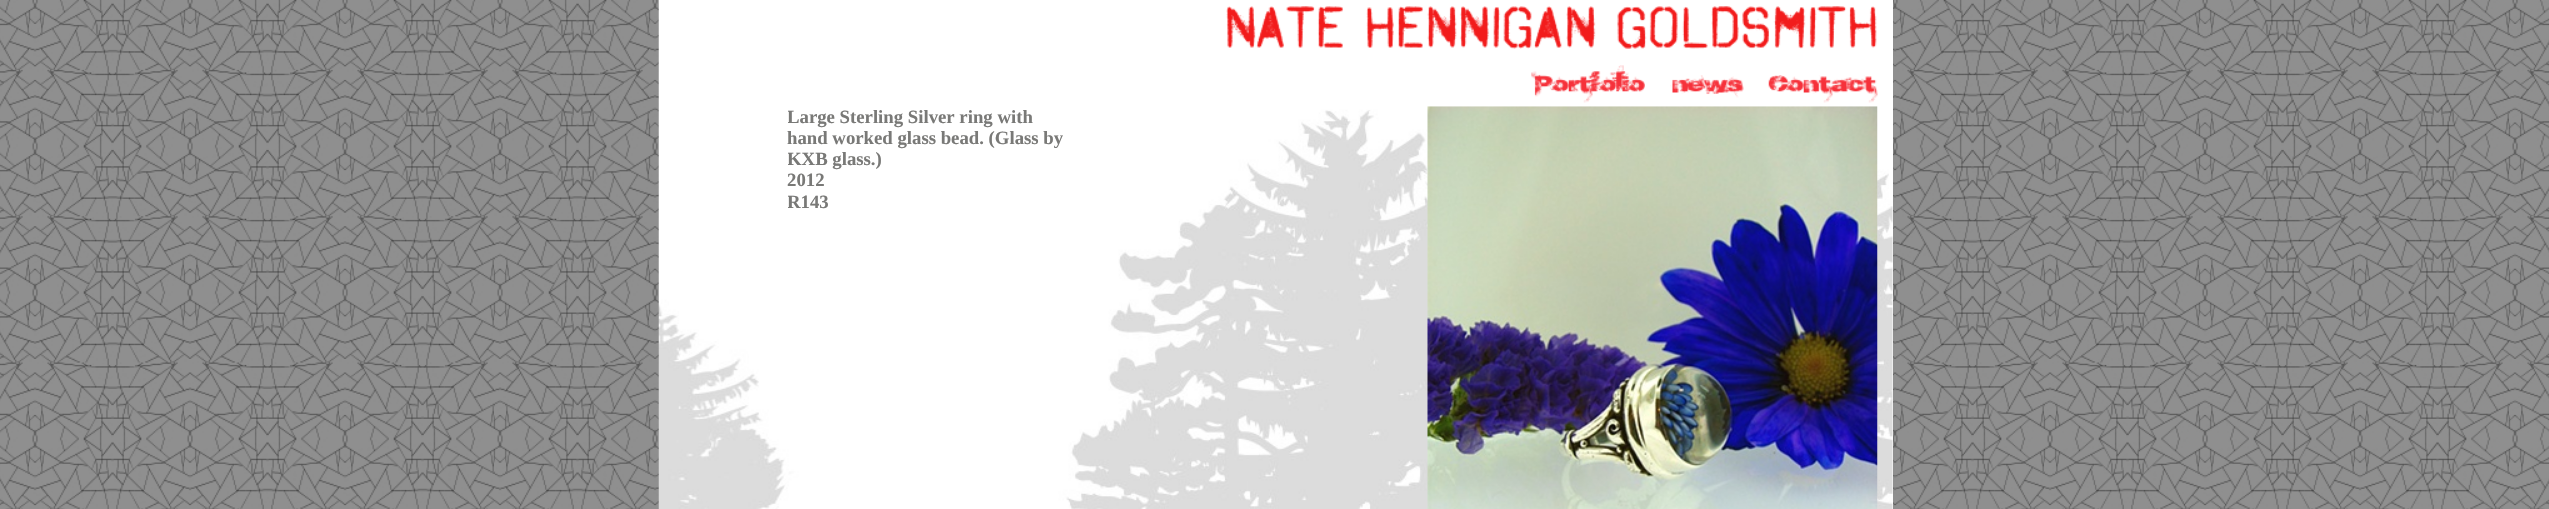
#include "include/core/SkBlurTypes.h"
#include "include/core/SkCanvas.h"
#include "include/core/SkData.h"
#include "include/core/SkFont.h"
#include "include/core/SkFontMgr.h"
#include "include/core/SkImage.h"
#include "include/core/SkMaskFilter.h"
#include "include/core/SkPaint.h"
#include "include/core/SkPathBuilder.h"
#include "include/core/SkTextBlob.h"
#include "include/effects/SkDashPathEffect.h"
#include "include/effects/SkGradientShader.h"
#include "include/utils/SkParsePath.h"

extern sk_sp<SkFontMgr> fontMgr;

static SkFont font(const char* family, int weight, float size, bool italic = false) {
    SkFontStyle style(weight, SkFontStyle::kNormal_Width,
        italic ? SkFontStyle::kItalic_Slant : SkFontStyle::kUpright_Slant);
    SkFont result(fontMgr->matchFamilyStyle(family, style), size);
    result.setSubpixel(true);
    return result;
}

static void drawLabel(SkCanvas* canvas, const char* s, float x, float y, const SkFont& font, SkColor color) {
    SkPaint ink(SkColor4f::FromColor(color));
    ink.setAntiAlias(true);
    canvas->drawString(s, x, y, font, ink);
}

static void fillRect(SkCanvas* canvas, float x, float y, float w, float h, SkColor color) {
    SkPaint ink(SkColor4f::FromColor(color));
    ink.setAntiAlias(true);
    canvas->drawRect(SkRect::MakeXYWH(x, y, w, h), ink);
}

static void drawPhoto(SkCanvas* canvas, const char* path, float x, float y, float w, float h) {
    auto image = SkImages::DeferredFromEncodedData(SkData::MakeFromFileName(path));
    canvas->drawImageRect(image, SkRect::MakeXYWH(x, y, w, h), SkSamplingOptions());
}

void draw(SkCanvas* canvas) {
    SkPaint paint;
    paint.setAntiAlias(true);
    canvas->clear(0xFFFFFFFF);
    drawPhoto(canvas, "assets/img1.png", 0, 0, 2549, 509);
    fillRect(canvas, 1892, 0, 1, 509, 0xFFFFFFFF);
    drawPhoto(canvas, "assets/img2.png", 658, 0, 1235, 509);
    drawPhoto(canvas, "assets/img3.png", 1226, 6, 651, 43);
    drawPhoto(canvas, "assets/img4.png", 1531, 65, 114, 38);
    drawPhoto(canvas, "assets/img5.png", 1670, 75, 74, 23);
    drawPhoto(canvas, "assets/img6.png", 1768, 75, 110, 28);
    canvas->save();
    canvas->clipRect(SkRect::MakeXYWH(788, 106, 283, 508));
    SkFont font1 = font("Liberation Serif", 700, 18.75f);
    drawLabel(canvas, "Large Sterling Silver ring with", 787, 123, font1, 0xFF797977);
    canvas->restore();
    drawLabel(canvas, "hand worked glass bead. (Glass by", 787, 144, font1, 0xFF797977);
    canvas->save();
    canvas->clipRect(SkRect::MakeXYWH(788, 106, 283, 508));
    drawLabel(canvas, "KXB glass.)", 787, 165, font1, 0xFF797977);
    canvas->restore();
    drawLabel(canvas, "2012", 787, 186, font1, 0xFF797977);
    canvas->save();
    canvas->clipRect(SkRect::MakeXYWH(788, 106, 283, 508));
    drawLabel(canvas, "R143", 787, 208, font1, 0xFF797977);
    canvas->restore();
    drawPhoto(canvas, "assets/img7.png", 1427, 106, 451, 403);
}
